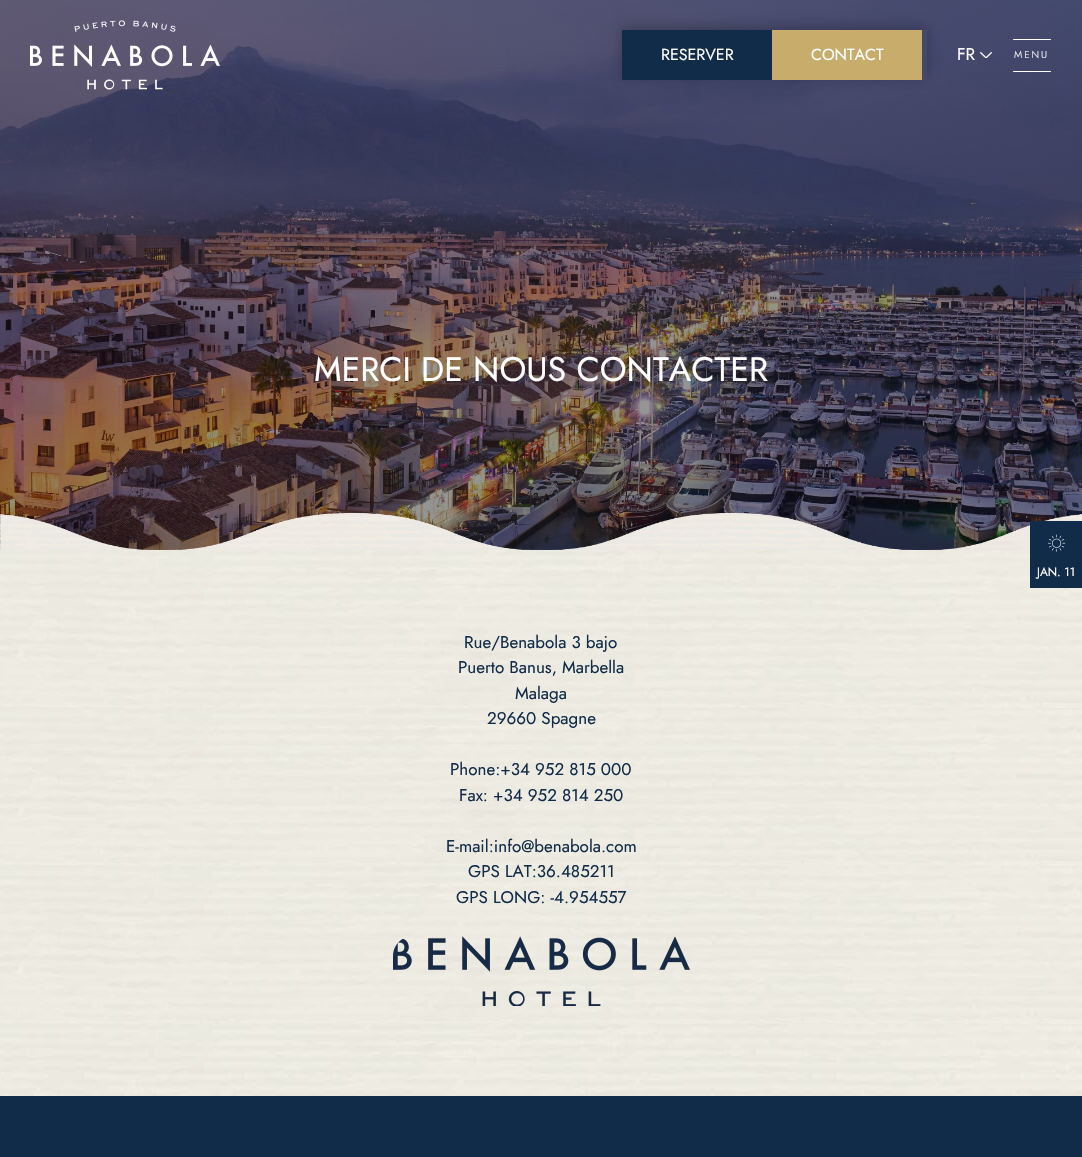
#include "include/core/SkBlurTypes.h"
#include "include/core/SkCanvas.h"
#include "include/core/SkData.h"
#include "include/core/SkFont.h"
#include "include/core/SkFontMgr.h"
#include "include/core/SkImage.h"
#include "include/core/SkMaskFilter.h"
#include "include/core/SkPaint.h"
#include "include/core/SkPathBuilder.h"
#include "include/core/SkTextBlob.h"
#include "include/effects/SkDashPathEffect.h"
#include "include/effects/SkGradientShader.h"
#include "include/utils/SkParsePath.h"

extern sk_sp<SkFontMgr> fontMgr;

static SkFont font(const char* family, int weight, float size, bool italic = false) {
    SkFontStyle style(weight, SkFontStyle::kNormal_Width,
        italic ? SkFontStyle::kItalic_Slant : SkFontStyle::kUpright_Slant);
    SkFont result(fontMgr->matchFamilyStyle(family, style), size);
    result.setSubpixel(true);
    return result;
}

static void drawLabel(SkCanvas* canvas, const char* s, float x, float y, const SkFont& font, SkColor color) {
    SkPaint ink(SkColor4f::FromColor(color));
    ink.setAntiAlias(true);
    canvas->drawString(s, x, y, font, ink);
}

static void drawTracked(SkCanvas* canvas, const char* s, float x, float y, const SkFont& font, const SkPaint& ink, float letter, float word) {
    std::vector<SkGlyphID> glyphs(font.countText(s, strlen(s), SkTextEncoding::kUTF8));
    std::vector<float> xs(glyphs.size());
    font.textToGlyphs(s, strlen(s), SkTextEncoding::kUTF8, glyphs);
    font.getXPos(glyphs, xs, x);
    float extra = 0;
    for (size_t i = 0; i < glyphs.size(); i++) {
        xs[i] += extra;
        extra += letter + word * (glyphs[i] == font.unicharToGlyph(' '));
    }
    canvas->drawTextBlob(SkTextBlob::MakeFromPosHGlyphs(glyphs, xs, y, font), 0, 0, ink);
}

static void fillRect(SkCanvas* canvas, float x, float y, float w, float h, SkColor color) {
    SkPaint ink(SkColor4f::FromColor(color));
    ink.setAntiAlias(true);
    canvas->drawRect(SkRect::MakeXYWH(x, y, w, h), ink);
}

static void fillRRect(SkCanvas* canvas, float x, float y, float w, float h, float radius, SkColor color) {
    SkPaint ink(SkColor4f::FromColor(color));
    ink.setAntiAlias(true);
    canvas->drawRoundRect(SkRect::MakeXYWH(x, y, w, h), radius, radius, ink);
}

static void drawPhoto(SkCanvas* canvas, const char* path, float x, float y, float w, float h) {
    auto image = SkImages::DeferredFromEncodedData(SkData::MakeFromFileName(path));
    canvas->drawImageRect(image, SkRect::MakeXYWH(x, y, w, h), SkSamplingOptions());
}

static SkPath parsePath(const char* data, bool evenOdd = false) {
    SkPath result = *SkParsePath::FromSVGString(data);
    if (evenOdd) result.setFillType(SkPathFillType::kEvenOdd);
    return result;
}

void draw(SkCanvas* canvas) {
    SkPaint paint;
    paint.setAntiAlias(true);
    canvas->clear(0xFFFFFFFF);
    drawPhoto(canvas, "assets/img3.png", 0, 0, 1082, 550);
    drawPhoto(canvas, "assets/img1.png", 30, 20, 190, 70);
    canvas->save();
    canvas->clipPath(parsePath("M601 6H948V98H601ZM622 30H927V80H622Z", true), true);
    paint.setColor(0x42000000);
    paint.setMaskFilter(SkMaskFilter::MakeBlur(kNormal_SkBlurStyle, 6.5f));
    canvas->drawRect(SkRect::MakeXYWH(622, 27, 305, 50), paint);
    paint.setMaskFilter(nullptr);
    canvas->restore();
    fillRect(canvas, 622, 30, 150, 50, 0xFF112C49);
    SkFont font1 = font("Jost", 400, 16);
    drawLabel(canvas, "RESERVER", 661, 60, font1, 0xFFFFFFFF);
    fillRect(canvas, 772, 30, 150, 50, 0xFFC7AC6B);
    drawLabel(canvas, "CONTACT", 811, 60, font1, 0xFFFFFFFF);
    SkFont font2 = font("Jost", 400, 17);
    drawLabel(canvas, "FR", 957, 60, font2, 0xFFFFFFFF);
    drawPhoto(canvas, "assets/img2.png", 980, 52, 12, 6);
    fillRRect(canvas, 1013, 39, 38, 1, 0.5f, 0xFFFFFFFF);
    SkFont font3 = font("Jost", 300, 10);
    paint.setColor(0xFFFFFFFF);
    drawTracked(canvas, "MENU", 1014, 58, font3, paint, 2, 0);
    fillRRect(canvas, 1013, 71, 38, 1, 0.5f, 0xFFFFFFFF);
    SkFont font4 = font("Jost", 400, 34);
    drawLabel(canvas, "MERCI DE NOUS CONTACTER", 314, 381, font4, 0xFFFFFFFF);
    drawPhoto(canvas, "assets/img4.png", 0, 513, 1082, 37);
    drawPhoto(canvas, "assets/img6.png", 0, 550, 1082, 546);
    fillRect(canvas, 1030, 521, 52, 67, 0xFF112C49);
    drawPhoto(canvas, "assets/img5.png", 1048, 534, 18, 18);
    SkFont font5 = font("Jost", 400, 12);
    drawLabel(canvas, "JAN. 11", 1037, 576, font5, 0xFFFFFFFF);
    drawLabel(canvas, "Rue/Benabola 3 bajo", 464, 648, font2, 0xFF112C49);
    drawLabel(canvas, "Puerto Banus, Marbella", 458, 673, font2, 0xFF112C49);
    drawLabel(canvas, "Malaga", 515, 699, font2, 0xFF112C49);
    drawLabel(canvas, "29660 Spagne", 487, 724, font2, 0xFF112C49);
    drawLabel(canvas, "Phone:+34 952 815 000", 450, 775, font2, 0xFF112C49);
    drawLabel(canvas, "Fax: +34 952 814 250", 459, 801, font2, 0xFF112C49);
    drawLabel(canvas, "E-mail:info@benabola.com", 446, 852, font2, 0xFF112C49);
    drawLabel(canvas, "GPS LAT:36.485211", 468, 877, font2, 0xFF112C49);
    drawLabel(canvas, "GPS LONG: -4.954557", 456, 903, font2, 0xFF112C49);
    drawPhoto(canvas, "assets/img7.png", 393, 936, 297, 70);
    fillRect(canvas, 0, 1096, 1082, 61, 0xFF112C49);
}
